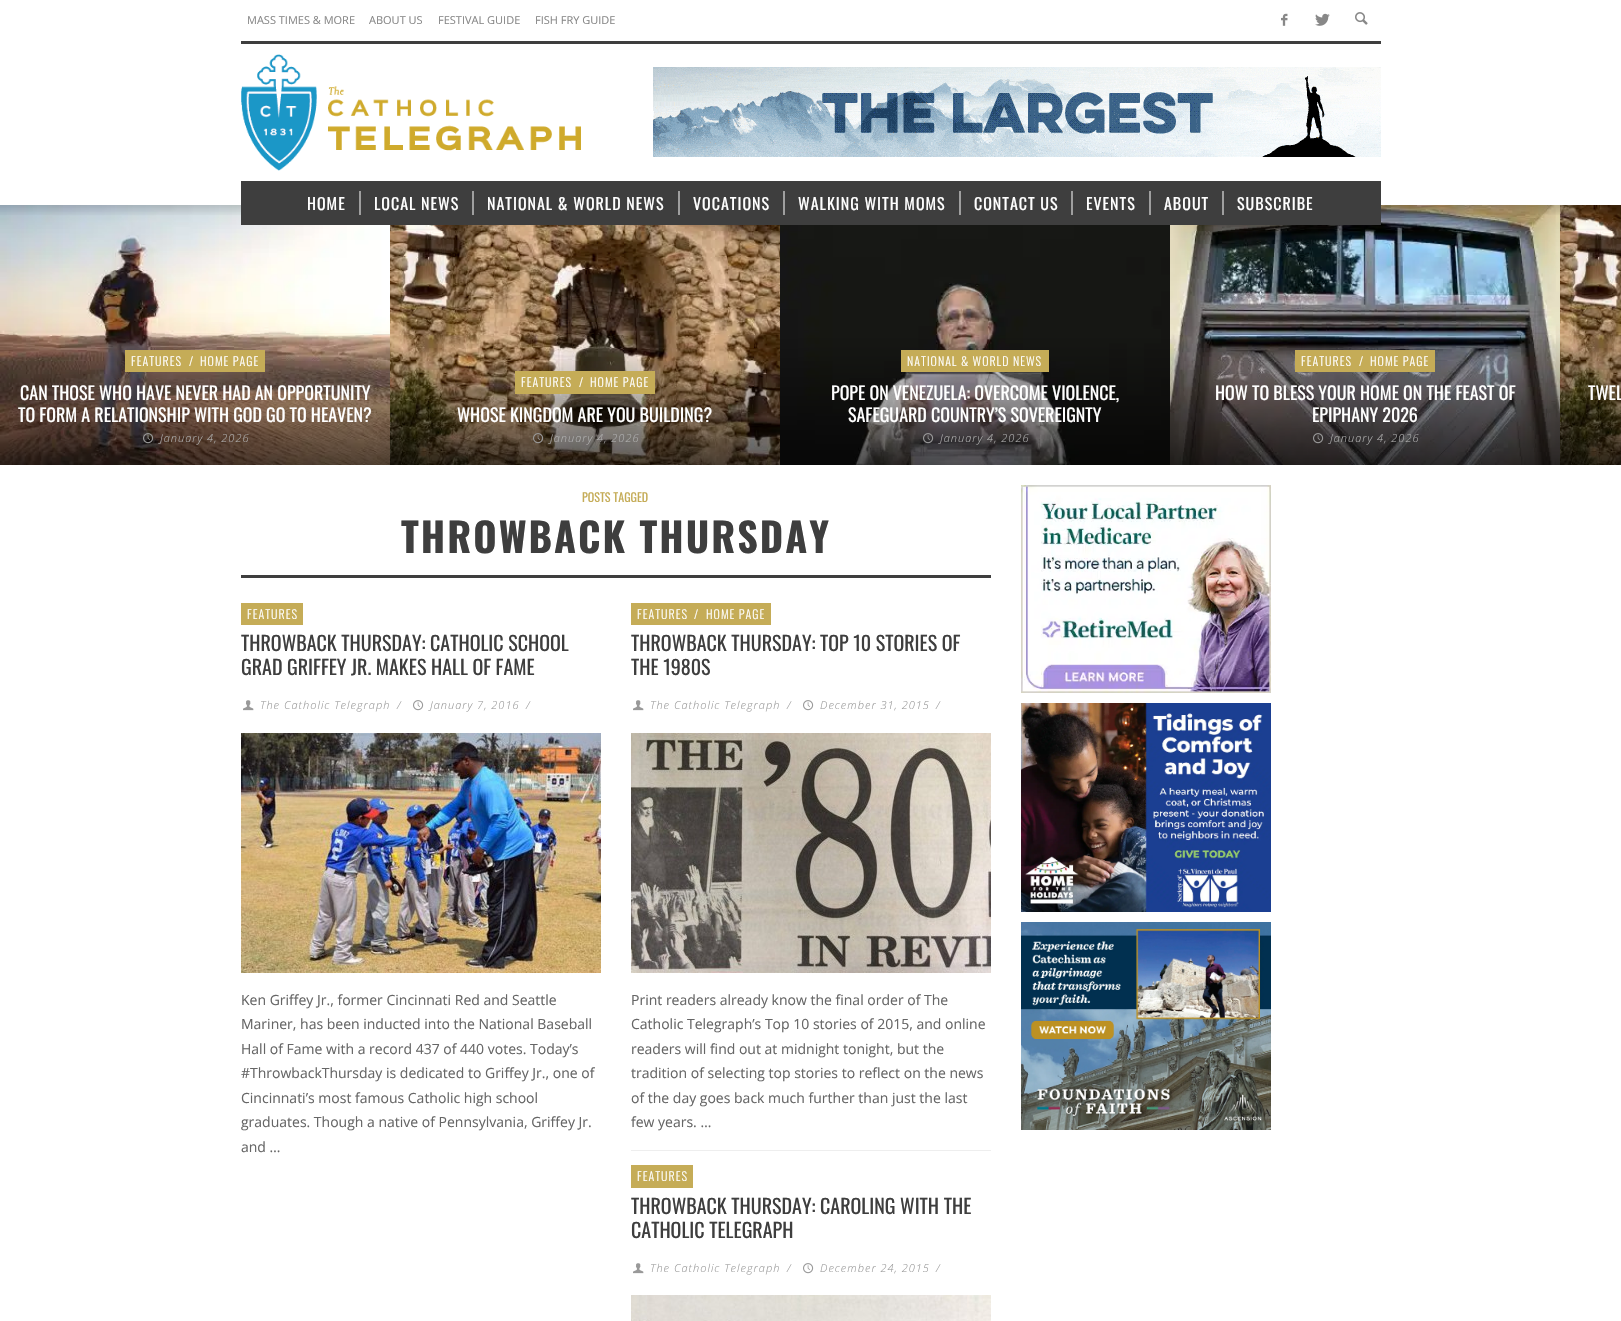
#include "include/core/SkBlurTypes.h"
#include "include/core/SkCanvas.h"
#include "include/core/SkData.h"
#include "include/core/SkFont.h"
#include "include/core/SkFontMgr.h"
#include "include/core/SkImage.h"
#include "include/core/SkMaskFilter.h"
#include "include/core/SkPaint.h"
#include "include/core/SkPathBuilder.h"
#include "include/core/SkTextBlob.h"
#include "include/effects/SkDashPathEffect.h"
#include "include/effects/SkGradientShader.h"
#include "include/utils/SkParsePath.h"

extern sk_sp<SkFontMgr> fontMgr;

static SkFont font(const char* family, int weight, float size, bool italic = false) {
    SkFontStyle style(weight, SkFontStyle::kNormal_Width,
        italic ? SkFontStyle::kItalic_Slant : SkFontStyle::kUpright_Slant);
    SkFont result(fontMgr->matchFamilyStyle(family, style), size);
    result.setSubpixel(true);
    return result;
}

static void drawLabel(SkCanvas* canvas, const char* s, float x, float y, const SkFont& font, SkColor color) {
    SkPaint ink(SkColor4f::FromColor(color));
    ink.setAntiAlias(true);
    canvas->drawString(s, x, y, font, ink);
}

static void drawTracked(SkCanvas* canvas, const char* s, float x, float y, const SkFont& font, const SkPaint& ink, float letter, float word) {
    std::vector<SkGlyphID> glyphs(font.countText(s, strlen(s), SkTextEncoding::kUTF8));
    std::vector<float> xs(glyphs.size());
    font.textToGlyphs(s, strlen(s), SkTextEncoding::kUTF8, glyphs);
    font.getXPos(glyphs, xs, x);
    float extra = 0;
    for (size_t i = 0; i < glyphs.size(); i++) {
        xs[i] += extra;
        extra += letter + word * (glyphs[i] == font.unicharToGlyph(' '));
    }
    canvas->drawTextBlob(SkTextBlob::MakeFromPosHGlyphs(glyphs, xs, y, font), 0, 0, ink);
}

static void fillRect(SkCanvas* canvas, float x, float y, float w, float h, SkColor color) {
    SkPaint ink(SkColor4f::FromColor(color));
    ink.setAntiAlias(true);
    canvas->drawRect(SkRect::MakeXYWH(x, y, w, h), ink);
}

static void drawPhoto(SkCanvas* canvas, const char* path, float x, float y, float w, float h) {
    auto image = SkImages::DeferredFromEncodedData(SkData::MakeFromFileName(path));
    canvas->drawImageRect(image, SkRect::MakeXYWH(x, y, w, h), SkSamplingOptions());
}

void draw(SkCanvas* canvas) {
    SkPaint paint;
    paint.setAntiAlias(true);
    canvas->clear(0xFFFFFFFF);
    fillRect(canvas, 241, 41, 1140, 3, 0xFF3E3E3E);
    SkFont font1 = font("Open Sans", 400, 11);
    drawLabel(canvas, "MASS TIMES & MORE", 247, 24, font1, 0xFF888888);
    drawLabel(canvas, "ABOUT US", 369, 24, font1, 0xFF888888);
    drawLabel(canvas, "FESTIVAL GUIDE", 438, 24, font1, 0xFF888888);
    drawLabel(canvas, "FISH FRY GUIDE", 535, 24, font1, 0xFF888888);
    drawPhoto(canvas, "assets/img1.png", 1281, 13, 7, 13);
    drawPhoto(canvas, "assets/img2.png", 1315, 13, 15, 13);
    drawPhoto(canvas, "assets/img3.png", 1355, 12, 13, 13);
    drawPhoto(canvas, "assets/img4.png", 241, 54, 340, 117);
    drawPhoto(canvas, "assets/img5.png", 653, 67, 728, 90);
    drawPhoto(canvas, "assets/img6.png", 0, 205, 390, 260);
    drawPhoto(canvas, "assets/img12.png", 1170, 205, 390, 260);
    drawPhoto(canvas, "assets/img14.png", 1560, 205, 61, 260);
    {
        const SkColor colors[] = {0x26000000, 0x05000000, 0x00000000};
        const float stops[] = {0, 0.5f, 0.8f};
        const SkPoint ends[] = {{811, 205}, {811, 225}};
        paint.setShader(SkGradientShader::MakeLinear(ends, colors, stops, 3, SkTileMode::kClamp));
        paint.setAlpha(255);
    }
    canvas->drawRect(SkRect::MakeXYWH(0, 205, 1621, 10), paint);
    fillRect(canvas, 241, 181, 1140, 44, 0xFF3E3E3E);
    SkFont font2 = font("Oswald", 400, 16);
    paint.setShader(nullptr);
    paint.setColor(0xFFFFFFFF);
    drawTracked(canvas, "HOME", 307, 210, font2, paint, 1, 0);
    fillRect(canvas, 359, 191, 2, 24, 0xFF9F9F9F);
    drawTracked(canvas, "LOCAL NEWS", 374, 210, font2, paint, 1, 0);
    fillRect(canvas, 472, 191, 2, 24, 0xFF9F9F9F);
    drawTracked(canvas, "NATIONAL & WORLD NEWS", 487, 210, font2, paint, 1, 0);
    fillRect(canvas, 678, 191, 2, 24, 0xFF9F9F9F);
    drawTracked(canvas, "VOCATIONS", 693, 210, font2, paint, 1, 0);
    fillRect(canvas, 783, 191, 2, 24, 0xFF9F9F9F);
    drawTracked(canvas, "WALKING WITH MOMS", 798, 210, font2, paint, 1, 0);
    fillRect(canvas, 959, 191, 2, 24, 0xFF9F9F9F);
    drawTracked(canvas, "CONTACT US", 974, 210, font2, paint, 1, 0);
    fillRect(canvas, 1071, 191, 2, 24, 0xFF9F9F9F);
    drawTracked(canvas, "EVENTS", 1086, 210, font2, paint, 1, 0);
    fillRect(canvas, 1149, 191, 2, 24, 0xFF9F9F9F);
    drawTracked(canvas, "ABOUT", 1164, 210, font2, paint, 1, 0);
    fillRect(canvas, 1222, 191, 2, 24, 0xFF9F9F9F);
    drawTracked(canvas, "SUBSCRIBE", 1237, 210, font2, paint, 1, 0);
    fillRect(canvas, 125, 350, 140, 22, 0xFFC5AC57);
    SkFont font3 = font("Oswald", 300, 12);
    drawTracked(canvas, "FEATURES", 131, 366, font3, paint, 1, 0);
    drawLabel(canvas, "/", 189, 366, font3, 0xFFFFFFFF);
    drawTracked(canvas, "HOME PAGE", 200, 366, font3, paint, 1, 0);
    SkFont font4 = font("Oswald", 400, 18);
    drawLabel(canvas, "CAN THOSE WHO HAVE NEVER HAD AN OPPORTUNITY", 20, 400, font4, 0xFFFFFFFF);
    drawLabel(canvas, "TO FORM A RELATIONSHIP WITH GOD GO TO HEAVEN?", 18, 422, font4, 0xFFFFFFFF);
    drawPhoto(canvas, "assets/img7.png", 143, 433, 11, 11);
    SkFont font5 = font("Open Sans", 300, 11, true);
    paint.setColor(0xFFB0B0B0);
    drawTracked(canvas, "January 4, 2026", 160, 442, font5, paint, 1, 0);
    drawPhoto(canvas, "assets/img8.png", 390, 225, 390, 240);
    fillRect(canvas, 515, 371, 140, 23, 0xFFC5AC57);
    paint.setColor(0xFFFFFFFF);
    drawTracked(canvas, "FEATURES", 521, 387, font3, paint, 1, 0);
    drawLabel(canvas, "/", 579, 387, font3, 0xFFFFFFFF);
    drawTracked(canvas, "HOME PAGE", 590, 387, font3, paint, 1, 0);
    drawLabel(canvas, "WHOSE KINGDOM ARE YOU BUILDING?", 457, 422, font4, 0xFFFFFFFF);
    drawPhoto(canvas, "assets/img9.png", 533, 433, 11, 11);
    paint.setColor(0xFFB0B0B0);
    drawTracked(canvas, "January 4, 2026", 550, 442, font5, paint, 1, 0);
    drawPhoto(canvas, "assets/img10.png", 780, 225, 390, 240);
    fillRect(canvas, 901, 350, 148, 22, 0xFFC5AC57);
    paint.setColor(0xFFFFFFFF);
    drawTracked(canvas, "NATIONAL & WORLD NEWS", 907, 366, font3, paint, 1, 0);
    drawLabel(canvas, "POPE ON VENEZUELA: OVERCOME VIOLENCE,", 831, 400, font4, 0xFFFFFFFF);
    drawLabel(canvas, "SAFEGUARD COUNTRY’S SOVEREIGNTY", 848, 422, font4, 0xFFFFFFFF);
    drawPhoto(canvas, "assets/img11.png", 923, 433, 11, 11);
    paint.setColor(0xFFB0B0B0);
    drawTracked(canvas, "January 4, 2026", 940, 442, font5, paint, 1, 0);
    fillRect(canvas, 1295, 350, 140, 22, 0xFFC5AC57);
    paint.setColor(0xFFFFFFFF);
    drawTracked(canvas, "FEATURES", 1301, 366, font3, paint, 1, 0);
    drawLabel(canvas, "/", 1359, 366, font3, 0xFFFFFFFF);
    drawTracked(canvas, "HOME PAGE", 1370, 366, font3, paint, 1, 0);
    drawLabel(canvas, "HOW TO BLESS YOUR HOME ON THE FEAST OF", 1215, 400, font4, 0xFFFFFFFF);
    drawLabel(canvas, "EPIPHANY 2026", 1312, 422, font4, 0xFFFFFFFF);
    drawPhoto(canvas, "assets/img13.png", 1313, 433, 11, 11);
    paint.setColor(0xFFB0B0B0);
    drawTracked(canvas, "January 4, 2026", 1330, 442, font5, paint, 1, 0);
    drawLabel(canvas, "TWEL", 1588, 400, font4, 0xFFFFFFFF);
    fillRect(canvas, 241, 575, 750, 3, 0xFF3E3E3E);
    SkFont font6 = font("Oswald", 400, 12);
    drawLabel(canvas, "POSTS TAGGED", 582, 502, font6, 0xFFC5AC57);
    SkFont font7 = font("Oswald", 700, 40);
    paint.setColor(0xFF3E3E3E);
    drawTracked(canvas, "THROWBACK THURSDAY", 401, 553, font7, paint, 2, 0);
    fillRect(canvas, 241, 603, 62, 22, 0xFFC5AC57);
    paint.setColor(0xFFFFFFFF);
    drawTracked(canvas, "FEATURES", 247, 619, font3, paint, 1, 0);
    SkFont font8 = font("Oswald", 400, 20);
    drawLabel(canvas, "THROWBACK THURSDAY: CATHOLIC SCHOOL", 241, 651, font8, 0xFF3E3E3E);
    drawLabel(canvas, "GRAD GRIFFEY JR. MAKES HALL OF FAME", 241, 675, font8, 0xFF3E3E3E);
    drawPhoto(canvas, "assets/img15.png", 243, 700, 11, 11);
    paint.setColor(0xFF999999);
    drawTracked(canvas, "The Catholic Telegraph", 260, 709, font5, paint, 1, 0);
    drawTracked(canvas, "/", 397, 709, font5, paint, 1, 0);
    drawPhoto(canvas, "assets/img16.png", 413, 700, 11, 11);
    drawTracked(canvas, "January 7, 2016", 430, 709, font5, paint, 1, 0);
    drawTracked(canvas, "/", 526, 709, font5, paint, 1, 0);
    drawPhoto(canvas, "assets/img17.png", 241, 733, 360, 240);
    SkFont font9 = font("Open Sans", 400, 14);
    drawLabel(canvas, "Ken Griffey Jr., former Cincinnati Red and Seattle", 241, 1005, font9, 0xFF666666);
    drawLabel(canvas, "Mariner, has been inducted into the National Baseball", 241, 1029, font9, 0xFF666666);
    drawLabel(canvas, "Hall of Fame with a record 437 of 440 votes. Today’s", 241, 1054, font9, 0xFF666666);
    drawLabel(canvas, "#ThrowbackThursday is dedicated to Griffey Jr., one of", 241, 1078, font9, 0xFF666666);
    drawLabel(canvas, "Cincinnati’s most famous Catholic high school", 241, 1103, font9, 0xFF666666);
    drawLabel(canvas, "graduates. Though a native of Pennsylvania, Griffey Jr.", 241, 1127, font9, 0xFF666666);
    drawLabel(canvas, "and …", 241, 1152, font9, 0xFF666666);
    fillRect(canvas, 631, 603, 140, 22, 0xFFC5AC57);
    paint.setColor(0xFFFFFFFF);
    drawTracked(canvas, "FEATURES", 637, 619, font3, paint, 1, 0);
    drawLabel(canvas, "/", 694, 619, font3, 0xFFFFFFFF);
    drawTracked(canvas, "HOME PAGE", 706, 619, font3, paint, 1, 0);
    drawLabel(canvas, "THROWBACK THURSDAY: TOP 10 STORIES OF", 631, 651, font8, 0xFF3E3E3E);
    drawLabel(canvas, "THE 1980S", 631, 675, font8, 0xFF3E3E3E);
    drawPhoto(canvas, "assets/img15.png", 633, 700, 11, 11);
    paint.setColor(0xFF999999);
    drawTracked(canvas, "The Catholic Telegraph", 650, 709, font5, paint, 1, 0);
    drawTracked(canvas, "/", 787, 709, font5, paint, 1, 0);
    drawPhoto(canvas, "assets/img16.png", 803, 700, 11, 11);
    drawTracked(canvas, "December 31, 2015", 820, 709, font5, paint, 1, 0);
    drawTracked(canvas, "/", 936, 709, font5, paint, 1, 0);
    drawPhoto(canvas, "assets/img18.png", 631, 733, 360, 240);
    drawLabel(canvas, "Print readers already know the final order of The", 631, 1005, font9, 0xFF666666);
    drawLabel(canvas, "Catholic Telegraph’s Top 10 stories of 2015, and online", 631, 1029, font9, 0xFF666666);
    drawLabel(canvas, "readers will find out at midnight tonight, but the", 631, 1054, font9, 0xFF666666);
    drawLabel(canvas, "tradition of selecting top stories to reflect on the news", 631, 1078, font9, 0xFF666666);
    drawLabel(canvas, "of the day goes back much further than just the last", 631, 1103, font9, 0xFF666666);
    drawLabel(canvas, "few years. …", 631, 1127, font9, 0xFF666666);
    fillRect(canvas, 631, 1150, 360, 1, 0xFFEEEEEE);
    fillRect(canvas, 631, 1165, 62, 23, 0xFFC5AC57);
    paint.setColor(0xFFFFFFFF);
    drawTracked(canvas, "FEATURES", 637, 1181, font3, paint, 1, 0);
    drawLabel(canvas, "THROWBACK THURSDAY: CAROLING WITH THE", 631, 1214, font8, 0xFF3E3E3E);
    drawLabel(canvas, "CATHOLIC TELEGRAPH", 631, 1238, font8, 0xFF3E3E3E);
    drawPhoto(canvas, "assets/img15.png", 633, 1263, 11, 11);
    paint.setColor(0xFF999999);
    drawTracked(canvas, "The Catholic Telegraph", 650, 1272, font5, paint, 1, 0);
    drawTracked(canvas, "/", 787, 1272, font5, paint, 1, 0);
    drawPhoto(canvas, "assets/img16.png", 803, 1263, 11, 11);
    drawTracked(canvas, "December 24, 2015", 820, 1272, font5, paint, 1, 0);
    drawTracked(canvas, "/", 936, 1272, font5, paint, 1, 0);
    drawPhoto(canvas, "assets/img19.png", 631, 1295, 360, 26);
    drawPhoto(canvas, "assets/img20.png", 1021, 485, 250, 208);
    drawPhoto(canvas, "assets/img21.png", 1021, 703, 250, 209);
    drawPhoto(canvas, "assets/img22.png", 1021, 922, 250, 208);
}
